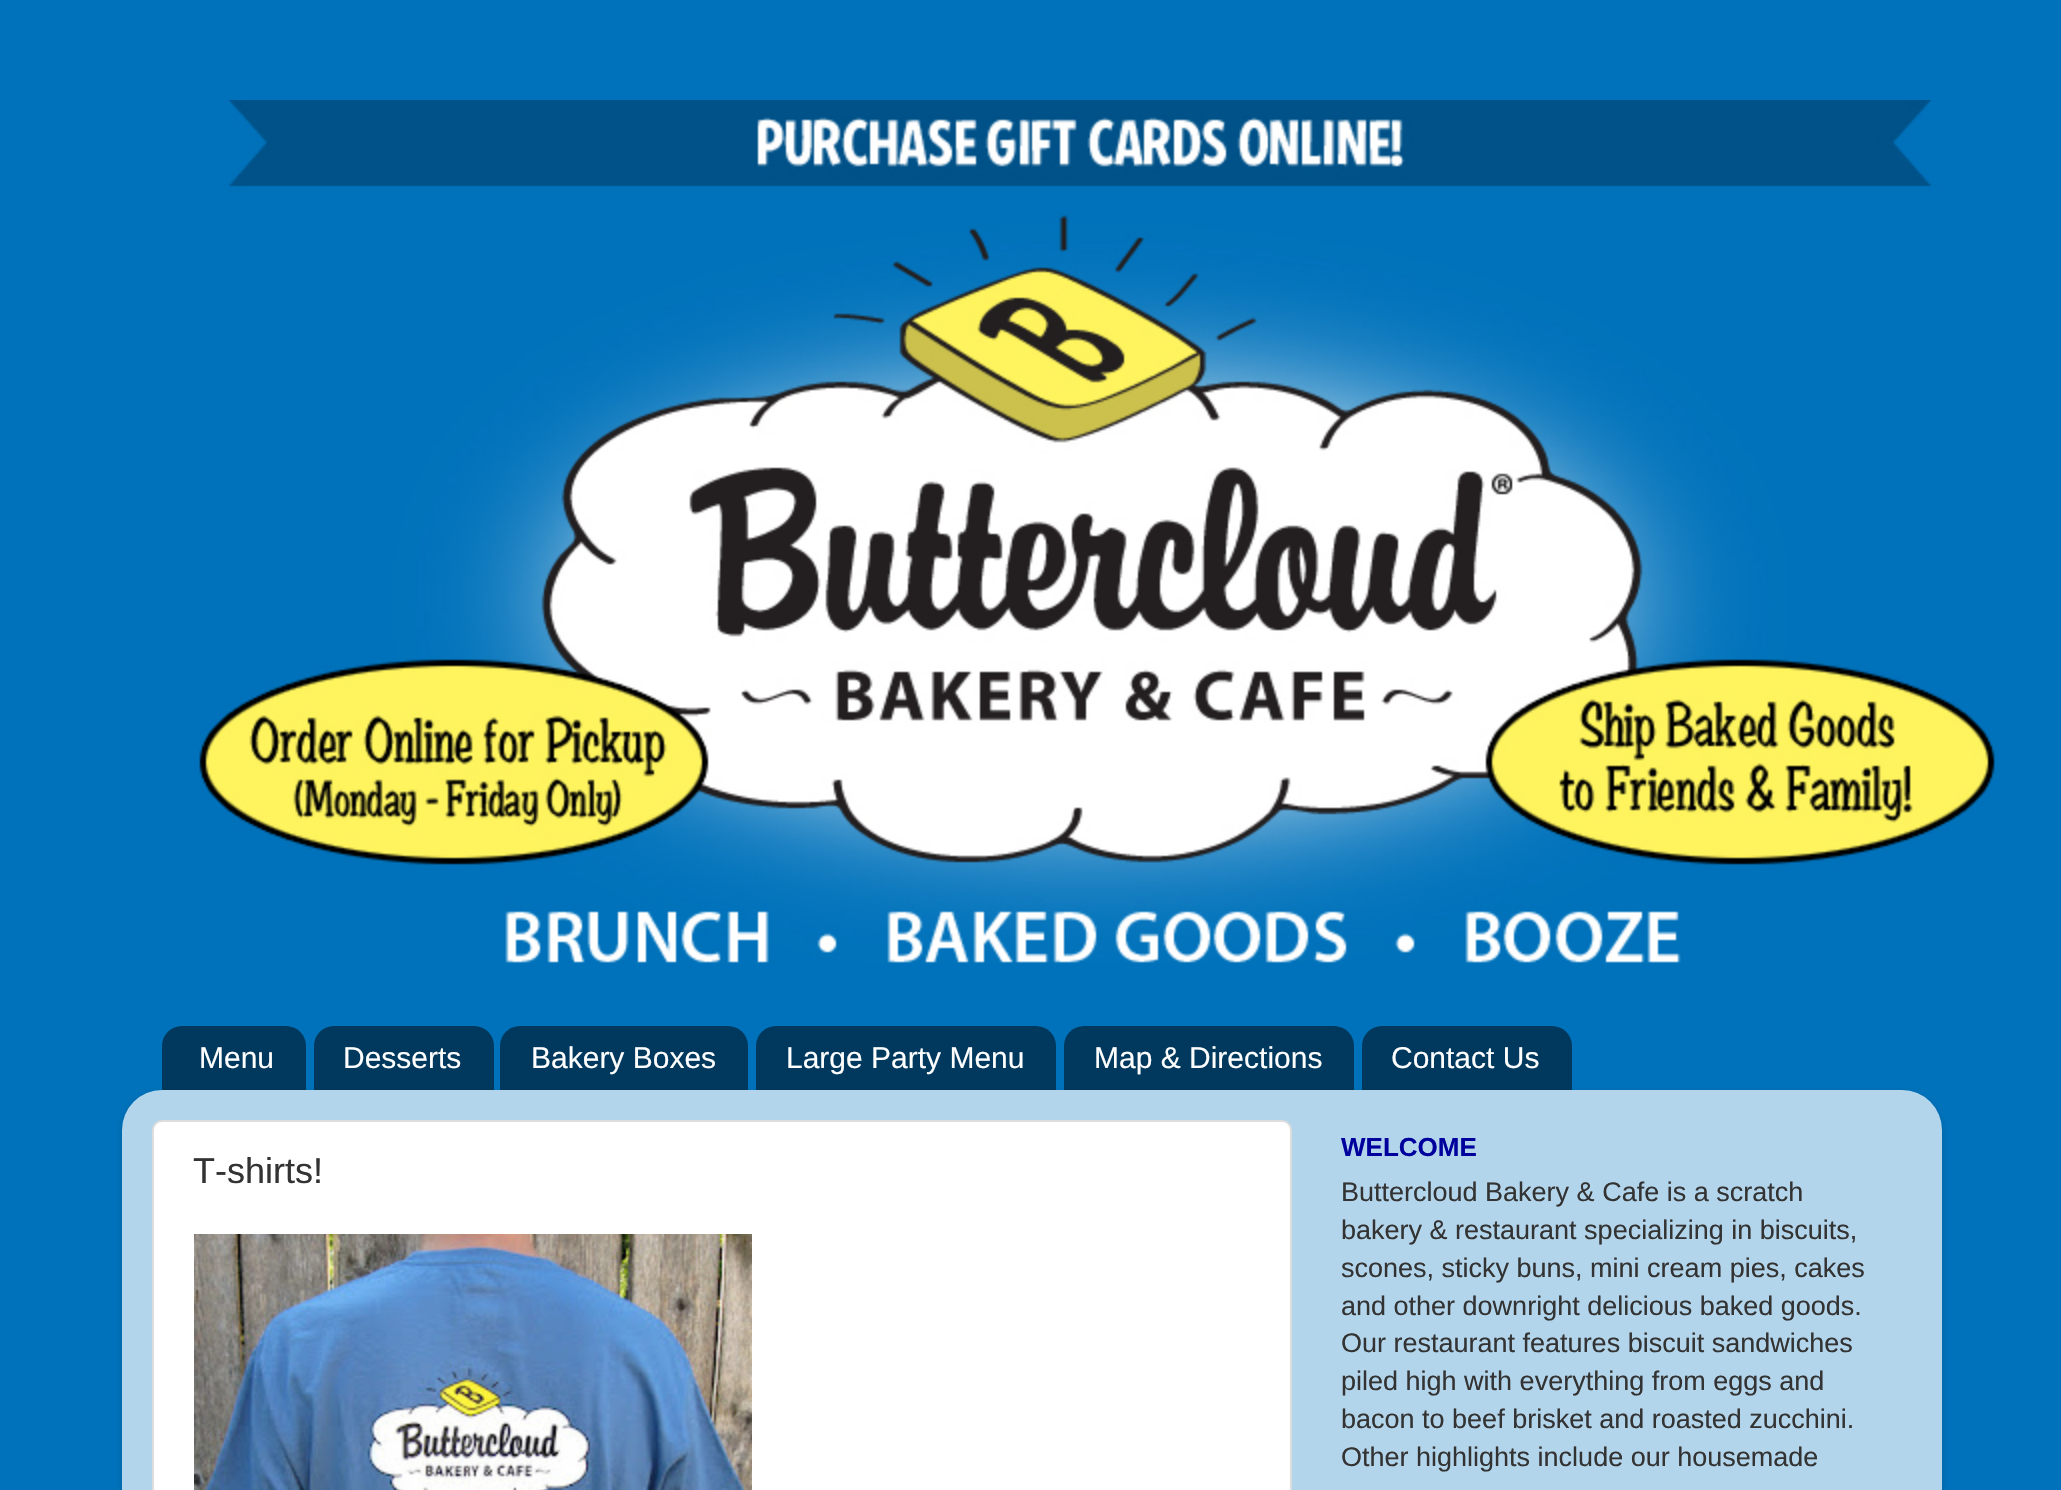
#include "include/core/SkBlurTypes.h"
#include "include/core/SkCanvas.h"
#include "include/core/SkData.h"
#include "include/core/SkFont.h"
#include "include/core/SkFontMgr.h"
#include "include/core/SkImage.h"
#include "include/core/SkMaskFilter.h"
#include "include/core/SkPaint.h"
#include "include/core/SkPathBuilder.h"
#include "include/core/SkTextBlob.h"
#include "include/effects/SkDashPathEffect.h"
#include "include/effects/SkGradientShader.h"
#include "include/utils/SkParsePath.h"

extern sk_sp<SkFontMgr> fontMgr;

static SkFont font(const char* family, int weight, float size, bool italic = false) {
    SkFontStyle style(weight, SkFontStyle::kNormal_Width,
        italic ? SkFontStyle::kItalic_Slant : SkFontStyle::kUpright_Slant);
    SkFont result(fontMgr->matchFamilyStyle(family, style), size);
    result.setSubpixel(true);
    return result;
}

static void drawLabel(SkCanvas* canvas, const char* s, float x, float y, const SkFont& font, SkColor color) {
    SkPaint ink(SkColor4f::FromColor(color));
    ink.setAntiAlias(true);
    canvas->drawString(s, x, y, font, ink);
}

static void drawPhoto(SkCanvas* canvas, const char* path, float x, float y, float w, float h) {
    auto image = SkImages::DeferredFromEncodedData(SkData::MakeFromFileName(path));
    canvas->drawImageRect(image, SkRect::MakeXYWH(x, y, w, h), SkSamplingOptions());
}

static SkPath parsePath(const char* data, bool evenOdd = false) {
    SkPath result = *SkParsePath::FromSVGString(data);
    if (evenOdd) result.setFillType(SkPathFillType::kEvenOdd);
    return result;
}

void draw(SkCanvas* canvas) {
    SkPaint paint;
    paint.setAntiAlias(true);
    canvas->clear(0xFF0072BB);
    drawPhoto(canvas, "assets/img1.png", 199, 100, 1796, 863);
    drawPhoto(canvas, "assets/img2.png", 162, 1026, 144, 64);
    SkFont font1 = font("Liberation Sans", 400, 30);
    drawLabel(canvas, "Menu", 199, 1068, font1, 0xFFFFFFFF);
    drawPhoto(canvas, "assets/img3.png", 314, 1026, 180, 64);
    drawLabel(canvas, "Desserts", 343, 1068, font1, 0xFFFFFFFF);
    drawPhoto(canvas, "assets/img4.png", 500, 1026, 248, 64);
    drawLabel(canvas, "Bakery Boxes", 531, 1068, font1, 0xFFFFFFFF);
    drawPhoto(canvas, "assets/img5.png", 756, 1026, 300, 64);
    drawLabel(canvas, "Large Party Menu", 786, 1068, font1, 0xFFFFFFFF);
    drawPhoto(canvas, "assets/img6.png", 1064, 1026, 290, 64);
    drawLabel(canvas, "Map & Directions", 1094, 1068, font1, 0xFFFFFFFF);
    drawPhoto(canvas, "assets/img7.png", 1362, 1026, 210, 64);
    drawLabel(canvas, "Contact Us", 1391, 1068, font1, 0xFFFFFFFF);
    canvas->save();
    canvas->clipPath(parsePath("M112 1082H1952V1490H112ZM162 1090H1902C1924 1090 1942 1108 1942 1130V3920H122V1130C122 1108 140 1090 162 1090Z", true), true);
    paint.setColor(0x26000000);
    paint.setMaskFilter(SkMaskFilter::MakeBlur(kNormal_SkBlurStyle, 3));
    canvas->drawRoundRect(SkRect::MakeXYWH(122, 1092, 1820, 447), 40, 40, paint);
    paint.setMaskFilter(nullptr);
    canvas->restore();
    drawPhoto(canvas, "assets/img8.png", 122, 1090, 1820, 400);
    paint.setColor(0xFFFFFFFF);
    canvas->drawRoundRect(SkRect::MakeXYWH(153, 1121, 1138, 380), 9, 9, paint);
    paint.setStroke(true);
    paint.setStrokeWidth(2);
    paint.setColor(0xFFDDDDDD);
    canvas->drawRoundRect(SkRect::MakeXYWH(153, 1121, 1138, 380), 9, 9, paint);
    SkFont font2 = font("Liberation Sans", 400, 36);
    drawLabel(canvas, "T-shirts!", 193, 1183, font2, 0xFF333333);
    drawPhoto(canvas, "assets/img9.png", 194, 1234, 558, 256);
    SkFont font3 = font("Liberation Sans", 700, 26);
    drawLabel(canvas, "WELCOME", 1341, 1156, font3, 0xFF00009D);
    SkFont font4 = font("Liberation Sans", 400, 27);
    drawLabel(canvas, "Buttercloud Bakery & Cafe is a scratch", 1341, 1201, font4, 0xFF333333);
    drawLabel(canvas, "bakery & restaurant specializing in biscuits,", 1341, 1239, font4, 0xFF333333);
    drawLabel(canvas, "scones, sticky buns, mini cream pies, cakes", 1341, 1277, font4, 0xFF333333);
    drawLabel(canvas, "and other downright delicious baked goods.", 1341, 1315, font4, 0xFF333333);
    drawLabel(canvas, "Our restaurant features biscuit sandwiches", 1341, 1352, font4, 0xFF333333);
    drawLabel(canvas, "piled high with everything from eggs and", 1341, 1390, font4, 0xFF333333);
    drawLabel(canvas, "bacon to beef brisket and roasted zucchini.", 1341, 1428, font4, 0xFF333333);
    drawLabel(canvas, "Other highlights include our housemade", 1341, 1466, font4, 0xFF333333);
}
